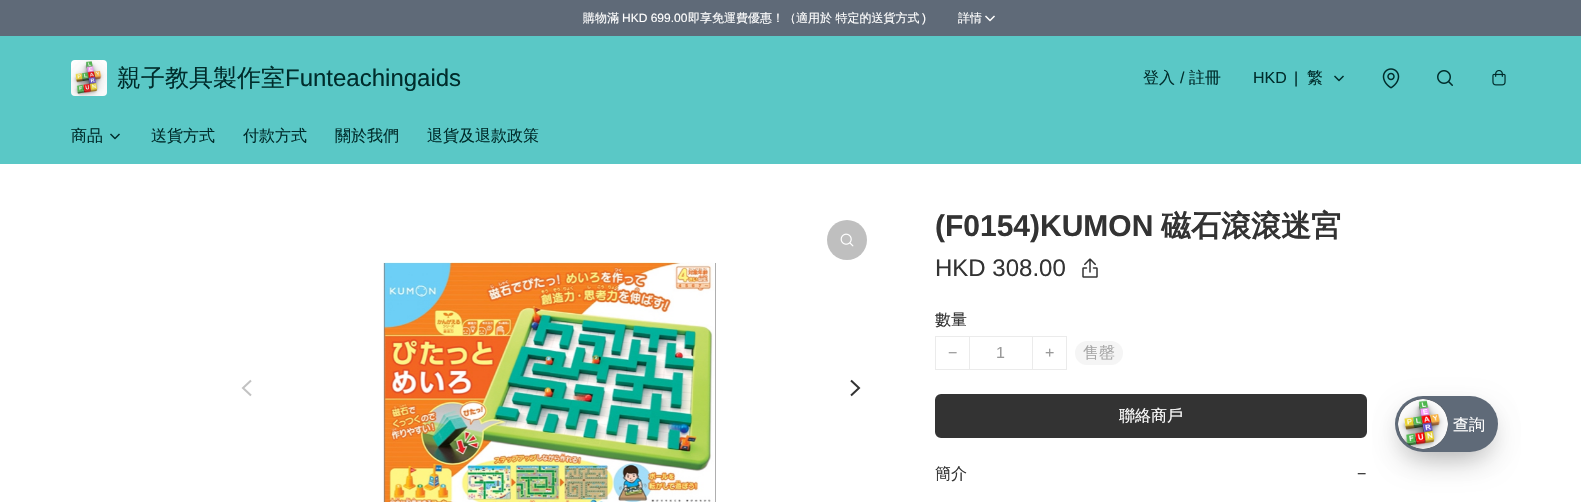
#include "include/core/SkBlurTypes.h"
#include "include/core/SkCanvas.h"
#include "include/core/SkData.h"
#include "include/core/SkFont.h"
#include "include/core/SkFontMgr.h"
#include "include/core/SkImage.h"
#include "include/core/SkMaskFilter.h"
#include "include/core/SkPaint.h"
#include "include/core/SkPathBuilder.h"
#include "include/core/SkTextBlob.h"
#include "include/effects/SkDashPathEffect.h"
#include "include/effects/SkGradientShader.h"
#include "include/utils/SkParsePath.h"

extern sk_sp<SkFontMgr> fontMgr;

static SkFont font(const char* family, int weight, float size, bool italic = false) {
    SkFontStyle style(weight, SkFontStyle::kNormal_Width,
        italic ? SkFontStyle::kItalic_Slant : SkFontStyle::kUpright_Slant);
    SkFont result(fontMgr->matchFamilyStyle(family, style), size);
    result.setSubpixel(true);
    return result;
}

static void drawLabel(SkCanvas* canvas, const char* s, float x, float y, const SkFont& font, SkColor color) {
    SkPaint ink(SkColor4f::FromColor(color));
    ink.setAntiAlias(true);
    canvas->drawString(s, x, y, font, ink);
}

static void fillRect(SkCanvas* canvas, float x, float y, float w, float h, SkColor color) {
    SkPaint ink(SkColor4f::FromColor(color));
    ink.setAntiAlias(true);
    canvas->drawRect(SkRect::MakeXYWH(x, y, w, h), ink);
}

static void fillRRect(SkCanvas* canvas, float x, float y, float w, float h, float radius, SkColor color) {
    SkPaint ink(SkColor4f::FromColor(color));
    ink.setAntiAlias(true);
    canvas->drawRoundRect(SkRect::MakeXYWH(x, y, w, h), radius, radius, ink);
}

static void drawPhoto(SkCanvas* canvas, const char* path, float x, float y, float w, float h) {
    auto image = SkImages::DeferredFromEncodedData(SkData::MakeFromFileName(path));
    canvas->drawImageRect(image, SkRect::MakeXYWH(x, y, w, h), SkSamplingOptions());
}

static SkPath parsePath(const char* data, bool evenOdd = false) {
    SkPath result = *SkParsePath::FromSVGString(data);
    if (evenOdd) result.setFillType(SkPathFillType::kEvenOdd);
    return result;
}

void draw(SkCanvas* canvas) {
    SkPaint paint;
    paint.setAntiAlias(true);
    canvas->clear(0xFFFFFFFF);
    fillRect(canvas, 0, 0, 1581, 36, 0xFF5F6A78);
    SkFont font1 = font("WenQuanYi Zen Hei", 500, 12);
    drawLabel(canvas, "購物滿", 583, 22, font1, 0xFFFFFFFF);
    SkFont font2 = font("Liberation Sans", 400, 12);
    drawLabel(canvas, "HKD 699.00", 622, 22, font2, 0xFFFFFFFF);
    drawLabel(canvas, "即享免運費優惠！（適用於 特定的送貨方式", 688, 22, font1, 0xFFFFFFFF);
    drawLabel(canvas, ")", 922, 22, font2, 0xFFFFFFFF);
    drawLabel(canvas, "詳情", 958, 22, font1, 0xFFFFFFFF);
    paint.setStroke(true);
    paint.setStrokeWidth(1.5f);
    paint.setStrokeCap(SkPaint::kSquare_Cap);
    paint.setStrokeJoin(SkPaint::kRound_Join);
    paint.setColor(0xFFFFFFFF);
    canvas->drawPath(parsePath("M986 16.5L990 20.5L994 16.5"), paint);
    fillRect(canvas, 0, 36, 1581, 128, 0xFF5AC8C6);
    drawPhoto(canvas, "assets/img1.png", 71, 60, 36, 36);
    SkFont font3 = font("WenQuanYi Zen Hei", 500, 24);
    drawLabel(canvas, "親子教具製作室", 117, 86, font3, 0xFF002D2C);
    SkFont font4 = font("Liberation Sans", 400, 24);
    drawLabel(canvas, "Funteachingaids", 285, 86, font4, 0xFF002D2C);
    SkFont font5 = font("WenQuanYi Zen Hei", 500, 16);
    drawLabel(canvas, "登入", 1143, 83, font5, 0xFF002D2C);
    SkFont font6 = font("Liberation Sans", 400, 16);
    drawLabel(canvas, "/", 1180, 83, font6, 0xFF002D2C);
    drawLabel(canvas, "註冊", 1189, 83, font5, 0xFF002D2C);
    drawLabel(canvas, "HKD", 1253, 83, font6, 0xFF002D2C);
    drawLabel(canvas, "|", 1294, 83, font6, 0xFF002D2C);
    drawLabel(canvas, "繁", 1307, 83, font5, 0xFF002D2C);
    paint.setColor(0xFF002D2C);
    canvas->drawPath(parsePath("M1335 76.5L1339 80.5L1343 76.5"), paint);
    drawPhoto(canvas, "assets/img2.png", 1382, 68, 18, 21);
    drawPhoto(canvas, "assets/img3.png", 1437, 70, 16, 16);
    drawPhoto(canvas, "assets/img4.png", 1492, 70, 14, 16);
    drawLabel(canvas, "商品", 71, 141, font5, 0xFF002D2C);
    canvas->drawPath(parsePath("M111 134.5L115 138.5L119 134.5"), paint);
    drawLabel(canvas, "送貨方式", 151, 141, font5, 0xFF002D2C);
    drawLabel(canvas, "付款方式", 243, 141, font5, 0xFF002D2C);
    drawLabel(canvas, "關於我們", 335, 141, font5, 0xFF002D2C);
    drawLabel(canvas, "退貨及退款政策", 427, 141, font5, 0xFF002D2C);
    paint.setStroke(false);
    paint.setColor(0xFFBFBFBF);
    canvas->drawCircle(847, 240, 20, paint);
    drawPhoto(canvas, "assets/img5.png", 840, 233, 14, 14);
    paint.setStroke(true);
    paint.setStrokeWidth(2);
    paint.setStrokeCap(SkPaint::kButt_Cap);
    paint.setStrokeJoin(SkPaint::kMiter_Join);
    paint.setColor(0xFFC2C2C2);
    canvas->drawPath(parsePath("M251 380.5L243 388L251 395.5"), paint);
    drawPhoto(canvas, "assets/img6.png", 383, 262, 333, 240);
    paint.setColor(0xFF333333);
    canvas->drawPath(parsePath("M851 380.5L859 388L851 395.5"), paint);
    SkFont font7 = font("Liberation Sans", 700, 30);
    drawLabel(canvas, "(F0154)KUMON", 935, 236, font7, 0xFF333333);
    SkFont font8 = font("WenQuanYi Zen Hei", 700, 30);
    drawLabel(canvas, "磁石滾滾迷宮", 1161, 236, font8, 0xFF333333);
    drawLabel(canvas, "HKD 308.00", 935, 276, font4, 0xFF333333);
    drawPhoto(canvas, "assets/img7.png", 1082, 258, 16, 20);
    drawLabel(canvas, "數量", 935, 325, font5, 0xFF333333);
    paint.setStrokeWidth(1);
    paint.setColor(0xFFEBEBEB);
    canvas->drawRect(SkRect::MakeXYWH(935.5f, 336.5f, 131, 33), paint);
    drawLabel(canvas, "−", 948, 358, font6, 0xFF999999);
    fillRect(canvas, 1032, 337, 1, 32, 0xFFEBEBEB);
    fillRect(canvas, 969, 337, 1, 32, 0xFFEBEBEB);
    drawLabel(canvas, "1", 996, 358, font6, 0xFF999999);
    drawLabel(canvas, "+", 1045, 358, font6, 0xFF999999);
    fillRRect(canvas, 1075, 341, 48, 24, 12, 0xFFF5F5F5);
    drawLabel(canvas, "售罄", 1083, 358, font5, 0xFFA7A7A7);
    paint.setStroke(false);
    paint.setColor(0xFF333333);
    canvas->drawRoundRect(SkRect::MakeXYWH(936, 395, 430, 42), 5, 5, paint);
    paint.setStroke(true);
    paint.setStrokeWidth(2);
    canvas->drawRoundRect(SkRect::MakeXYWH(936, 395, 430, 42), 5, 5, paint);
    drawLabel(canvas, "聯絡商戶", 1119, 421, font5, 0xFFFFFFFF);
    drawLabel(canvas, "簡介", 935, 479, font5, 0xFF333333);
    drawLabel(canvas, "−", 1357, 479, font6, 0xFF333333);
    paint.setStroke(false);
    paint.setColor(0x4D000000);
    paint.setMaskFilter(SkMaskFilter::MakeBlur(kNormal_SkBlurStyle, 15));
    canvas->drawRoundRect(SkRect::MakeXYWH(1405, 421, 83, 36), 18, 18, paint);
    paint.setMaskFilter(nullptr);
    paint.setColor(0x0D000000);
    paint.setMaskFilter(SkMaskFilter::MakeBlur(kNormal_SkBlurStyle, 10));
    canvas->drawRoundRect(SkRect::MakeXYWH(1395, 401, 103, 56), 28, 28, paint);
    paint.setMaskFilter(nullptr);
    fillRRect(canvas, 1395, 396, 103, 56, 28, 0xFF5F6A78);
    drawPhoto(canvas, "assets/img8.png", 1398, 399, 50, 50);
    drawLabel(canvas, "查詢", 1453, 430, font5, 0xFFFFFFFF);
}
